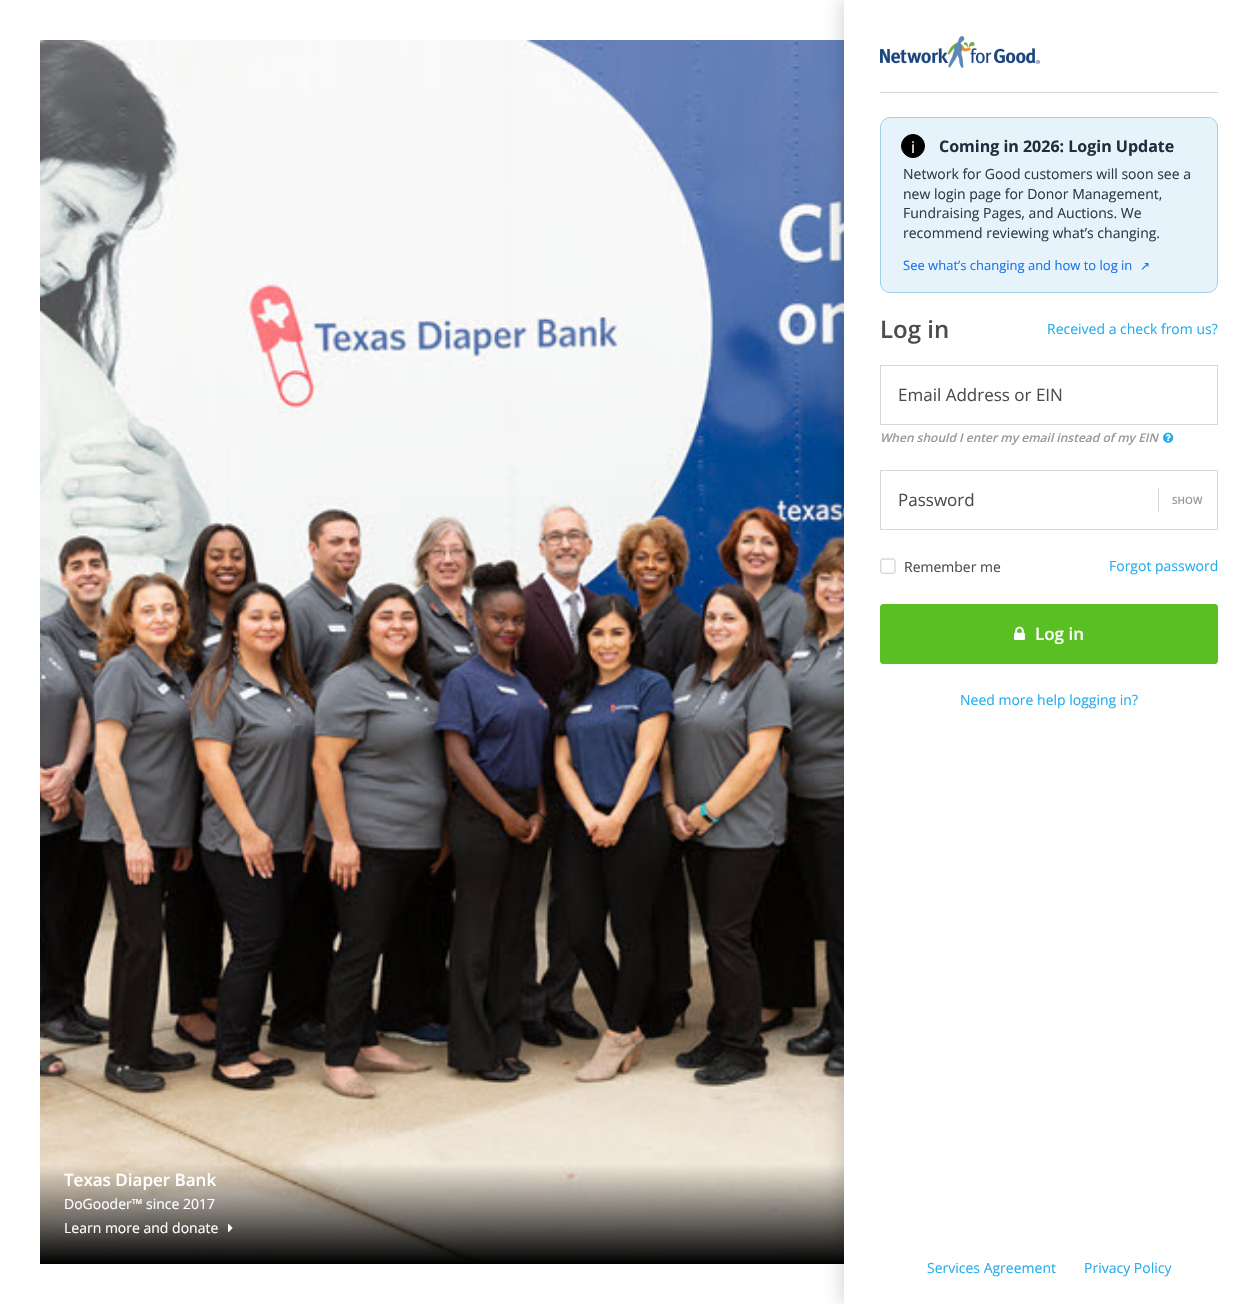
#include "include/core/SkBlurTypes.h"
#include "include/core/SkCanvas.h"
#include "include/core/SkData.h"
#include "include/core/SkFont.h"
#include "include/core/SkFontMgr.h"
#include "include/core/SkImage.h"
#include "include/core/SkMaskFilter.h"
#include "include/core/SkPaint.h"
#include "include/core/SkPathBuilder.h"
#include "include/core/SkTextBlob.h"
#include "include/effects/SkDashPathEffect.h"
#include "include/effects/SkGradientShader.h"
#include "include/utils/SkParsePath.h"

extern sk_sp<SkFontMgr> fontMgr;

static SkFont font(const char* family, int weight, float size, bool italic = false) {
    SkFontStyle style(weight, SkFontStyle::kNormal_Width,
        italic ? SkFontStyle::kItalic_Slant : SkFontStyle::kUpright_Slant);
    SkFont result(fontMgr->matchFamilyStyle(family, style), size);
    result.setSubpixel(true);
    return result;
}

static void drawLabel(SkCanvas* canvas, const char* s, float x, float y, const SkFont& font, SkColor color) {
    SkPaint ink(SkColor4f::FromColor(color));
    ink.setAntiAlias(true);
    canvas->drawString(s, x, y, font, ink);
}

static void fillRect(SkCanvas* canvas, float x, float y, float w, float h, SkColor color) {
    SkPaint ink(SkColor4f::FromColor(color));
    ink.setAntiAlias(true);
    canvas->drawRect(SkRect::MakeXYWH(x, y, w, h), ink);
}

static void drawPhoto(SkCanvas* canvas, const char* path, float x, float y, float w, float h) {
    auto image = SkImages::DeferredFromEncodedData(SkData::MakeFromFileName(path));
    canvas->drawImageRect(image, SkRect::MakeXYWH(x, y, w, h), SkSamplingOptions());
}

void draw(SkCanvas* canvas) {
    SkPaint paint;
    paint.setAntiAlias(true);
    canvas->clear(0xFFFFFFFF);
    drawPhoto(canvas, "assets/img1.png", 40, 40, 804, 1224);
    SkFont font1 = font("Open Sans", 600, 17);
    drawLabel(canvas, "Texas Diaper Bank", 64, 1186, font1, 0xFFFFFFFF);
    SkFont font2 = font("Open Sans", 400, 14);
    drawLabel(canvas, "DoGooder™ since 2017", 64, 1209, font2, 0xFFFFFFFF);
    drawLabel(canvas, "Learn more and donate", 64, 1233, font2, 0xFFFFFFFF);
    drawPhoto(canvas, "assets/img2.png", 228, 1224, 5, 8);
    paint.setColor(0x33000000);
    paint.setMaskFilter(SkMaskFilter::MakeBlur(kNormal_SkBlurStyle, 10));
    canvas->drawRect(SkRect::MakeXYWH(844, 0, 410, 1304), paint);
    paint.setMaskFilter(nullptr);
    fillRect(canvas, 844, 0, 410, 1304, 0xFFFFFFFF);
    drawPhoto(canvas, "assets/img3.png", 880, 36, 160, 32);
    fillRect(canvas, 880, 92, 338, 1, 0xFFD8D8D8);
    paint.setColor(0xFFE6F3FB);
    canvas->drawRoundRect(SkRect::MakeXYWH(880.5f, 117.5f, 337, 175), 9.5f, 9.5f, paint);
    paint.setStroke(true);
    paint.setStrokeWidth(1);
    paint.setColor(0xFF9FD0EC);
    canvas->drawRoundRect(SkRect::MakeXYWH(880.5f, 117.5f, 337, 175), 9.5f, 9.5f, paint);
    SkFont font3 = font("Open Sans", 700, 16);
    drawLabel(canvas, "Coming in 2026: Login Update", 939, 152, font3, 0xFF1F2D3D);
    drawLabel(canvas, "Network for Good customers will soon see a", 903, 179, font2, 0xFF2F3B4A);
    drawLabel(canvas, "new login page for Donor Management,", 903, 199, font2, 0xFF2F3B4A);
    drawLabel(canvas, "Fundraising Pages, and Auctions. We", 903, 218, font2, 0xFF2F3B4A);
    drawLabel(canvas, "recommend reviewing what’s changing.", 903, 238, font2, 0xFF2F3B4A);
    SkFont font4 = font("Open Sans", 400, 13);
    drawLabel(canvas, "See what’s changing and how to log in", 903, 270, font4, 0xFF1A73E8);
    SkFont font5 = font("DejaVu Sans", 400, 12);
    drawLabel(canvas, "↗", 1140, 270, font5, 0xFF1A73E8);
    paint.setStroke(false);
    paint.setColor(0xFF000000);
    canvas->drawCircle(913, 146, 11.5f, paint);
    paint.setStroke(true);
    canvas->drawCircle(913, 146, 11.5f, paint);
    SkFont font6 = font("Open Sans", 400, 16);
    drawLabel(canvas, "i", 911, 153, font6, 0xFFFFFFFF);
    SkFont font7 = font("Open Sans", 600, 24);
    drawLabel(canvas, "Log in", 880, 338, font7, 0xFF4D4D4D);
    drawLabel(canvas, "Received a check from us?", 1047, 334, font2, 0xFF25ACEB);
    paint.setColor(0xFFD8D8D8);
    canvas->drawRect(SkRect::MakeXYWH(880.5f, 365.5f, 337, 59), paint);
    SkFont font8 = font("Open Sans", 400, 17);
    drawLabel(canvas, "Email Address or EIN", 898, 401, font8, 0xFF4D4D4D);
    SkFont font9 = font("Open Sans", 600, 12, true);
    drawLabel(canvas, "When should I enter my email instead of my EIN", 880, 442, font9, 0xFF9A9A9A);
    drawPhoto(canvas, "assets/img4.png", 1163, 432, 11, 11);
    drawLabel(canvas, "Password", 898, 506, font8, 0xFF4D4D4D);
    canvas->drawRect(SkRect::MakeXYWH(880.5f, 470.5f, 337, 59), paint);
    fillRect(canvas, 1158, 488, 1, 24, 0xFFD8D8D8);
    SkFont font10 = font("Open Sans", 600, 10);
    drawLabel(canvas, "SHOW", 1172, 504, font10, 0xFF9A9A9A);
    drawPhoto(canvas, "assets/img5.png", 880, 558, 16, 16);
    drawLabel(canvas, "Remember me", 904, 572, font2, 0xFF4D4D4D);
    drawLabel(canvas, "Forgot password", 1109, 571, font2, 0xFF25ACEB);
    paint.setStroke(false);
    paint.setColor(0xFF59BF22);
    canvas->drawRoundRect(SkRect::MakeXYWH(880.5f, 604.5f, 337, 59), 2.5f, 2.5f, paint);
    paint.setStroke(true);
    canvas->drawRoundRect(SkRect::MakeXYWH(880.5f, 604.5f, 337, 59), 2.5f, 2.5f, paint);
    drawPhoto(canvas, "assets/img6.png", 1014, 626, 11, 14);
    drawLabel(canvas, "Log in", 1035, 640, font1, 0xFFFFFFFF);
    drawLabel(canvas, "Need more help logging in?", 960, 705, font2, 0xFF25ACEB);
    drawLabel(canvas, "Services Agreement", 927, 1273, font2, 0xFF25ACEB);
    drawLabel(canvas, "Privacy Policy", 1084, 1273, font2, 0xFF25ACEB);
}
